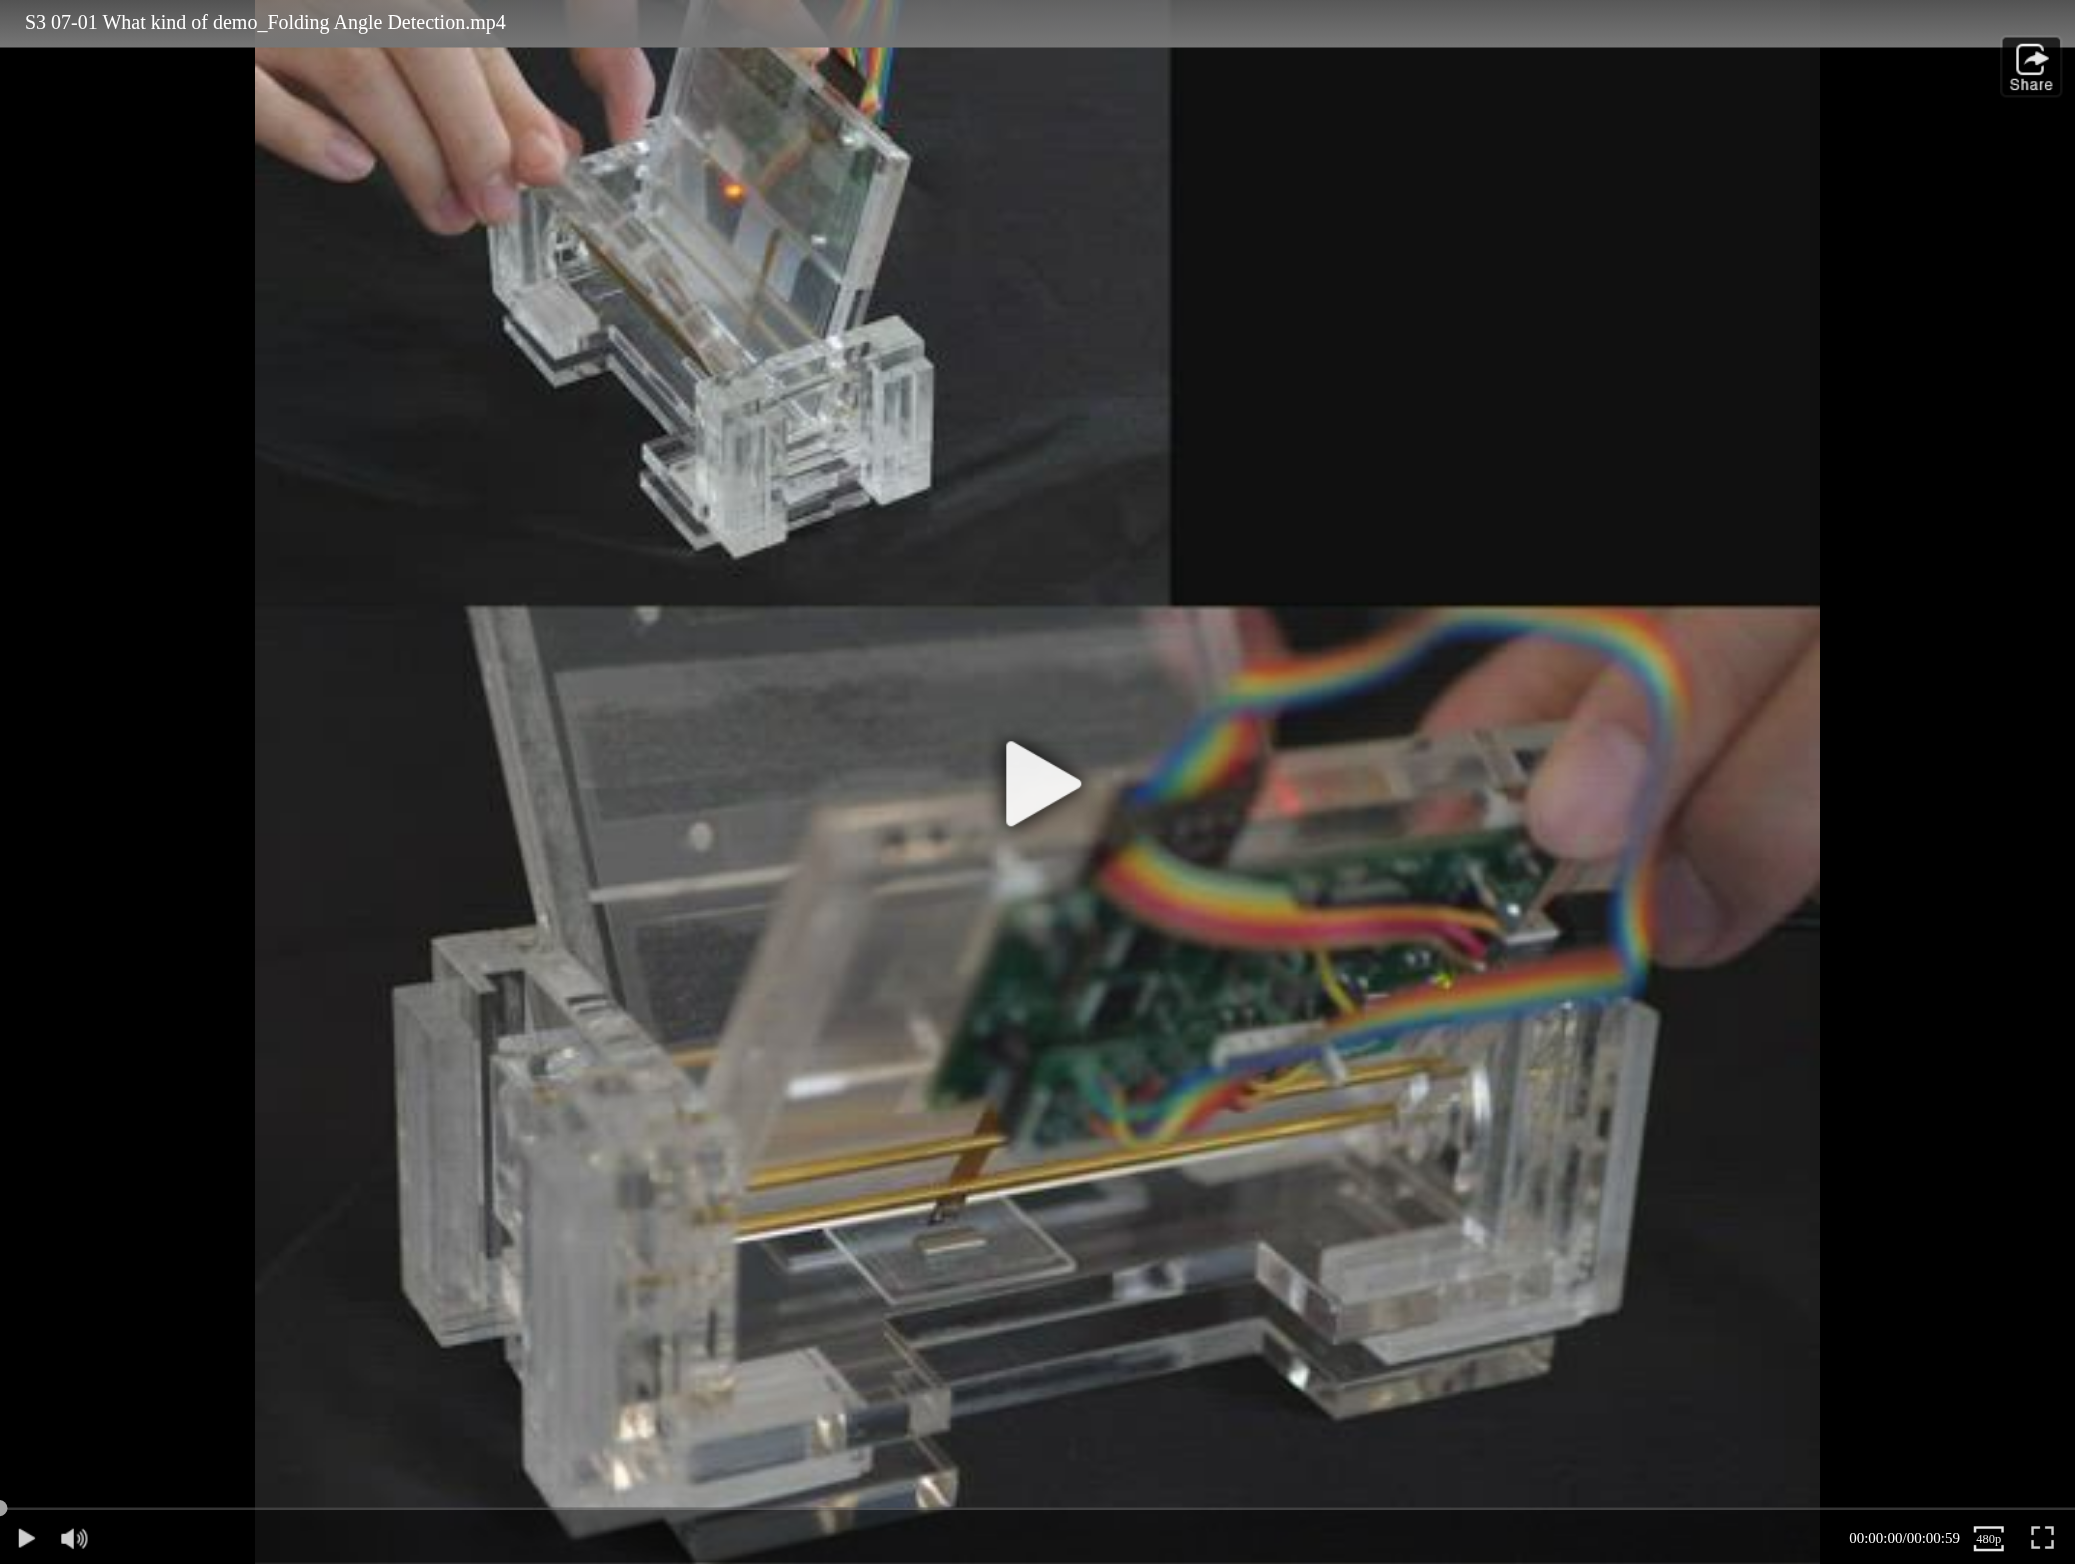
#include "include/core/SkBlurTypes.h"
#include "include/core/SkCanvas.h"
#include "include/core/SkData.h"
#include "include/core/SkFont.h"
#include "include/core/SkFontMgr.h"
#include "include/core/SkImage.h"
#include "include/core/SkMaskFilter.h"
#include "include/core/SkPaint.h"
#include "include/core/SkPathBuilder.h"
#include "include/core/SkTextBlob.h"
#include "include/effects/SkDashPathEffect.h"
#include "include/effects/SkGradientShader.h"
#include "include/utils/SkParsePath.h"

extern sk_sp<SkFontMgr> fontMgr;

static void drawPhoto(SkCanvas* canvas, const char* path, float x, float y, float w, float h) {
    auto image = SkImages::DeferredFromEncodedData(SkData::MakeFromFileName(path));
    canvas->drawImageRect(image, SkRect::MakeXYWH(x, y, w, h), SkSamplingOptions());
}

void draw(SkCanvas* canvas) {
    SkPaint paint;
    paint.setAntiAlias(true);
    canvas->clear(0xFFFFFFFF);
    drawPhoto(canvas, "assets/img1.png", 0, 0, 2075, 1564);
}
